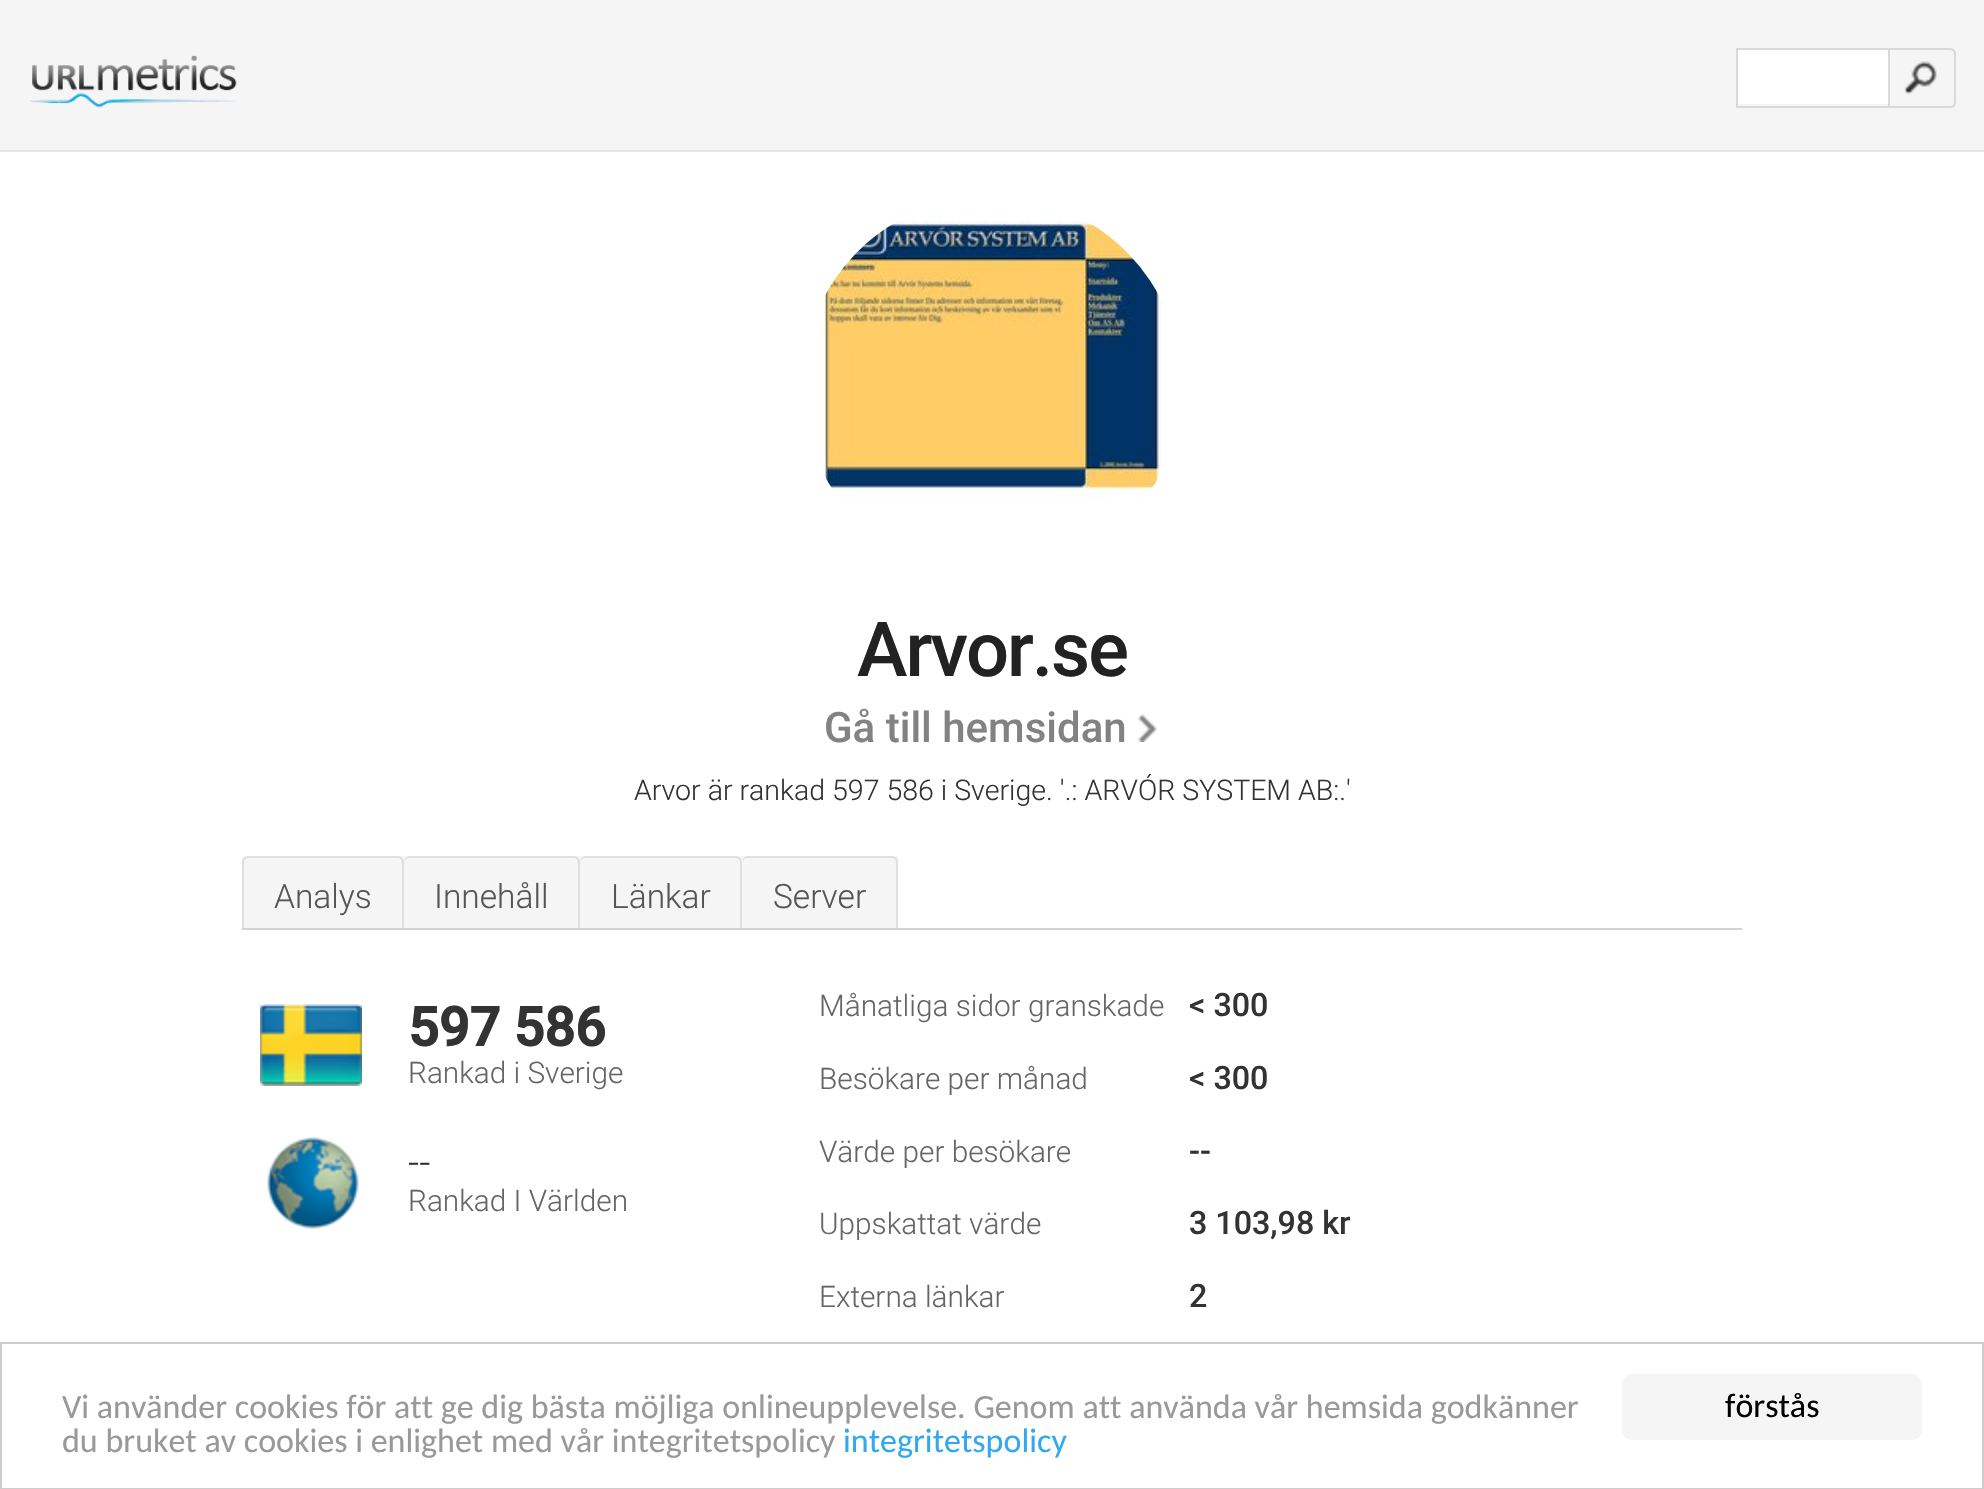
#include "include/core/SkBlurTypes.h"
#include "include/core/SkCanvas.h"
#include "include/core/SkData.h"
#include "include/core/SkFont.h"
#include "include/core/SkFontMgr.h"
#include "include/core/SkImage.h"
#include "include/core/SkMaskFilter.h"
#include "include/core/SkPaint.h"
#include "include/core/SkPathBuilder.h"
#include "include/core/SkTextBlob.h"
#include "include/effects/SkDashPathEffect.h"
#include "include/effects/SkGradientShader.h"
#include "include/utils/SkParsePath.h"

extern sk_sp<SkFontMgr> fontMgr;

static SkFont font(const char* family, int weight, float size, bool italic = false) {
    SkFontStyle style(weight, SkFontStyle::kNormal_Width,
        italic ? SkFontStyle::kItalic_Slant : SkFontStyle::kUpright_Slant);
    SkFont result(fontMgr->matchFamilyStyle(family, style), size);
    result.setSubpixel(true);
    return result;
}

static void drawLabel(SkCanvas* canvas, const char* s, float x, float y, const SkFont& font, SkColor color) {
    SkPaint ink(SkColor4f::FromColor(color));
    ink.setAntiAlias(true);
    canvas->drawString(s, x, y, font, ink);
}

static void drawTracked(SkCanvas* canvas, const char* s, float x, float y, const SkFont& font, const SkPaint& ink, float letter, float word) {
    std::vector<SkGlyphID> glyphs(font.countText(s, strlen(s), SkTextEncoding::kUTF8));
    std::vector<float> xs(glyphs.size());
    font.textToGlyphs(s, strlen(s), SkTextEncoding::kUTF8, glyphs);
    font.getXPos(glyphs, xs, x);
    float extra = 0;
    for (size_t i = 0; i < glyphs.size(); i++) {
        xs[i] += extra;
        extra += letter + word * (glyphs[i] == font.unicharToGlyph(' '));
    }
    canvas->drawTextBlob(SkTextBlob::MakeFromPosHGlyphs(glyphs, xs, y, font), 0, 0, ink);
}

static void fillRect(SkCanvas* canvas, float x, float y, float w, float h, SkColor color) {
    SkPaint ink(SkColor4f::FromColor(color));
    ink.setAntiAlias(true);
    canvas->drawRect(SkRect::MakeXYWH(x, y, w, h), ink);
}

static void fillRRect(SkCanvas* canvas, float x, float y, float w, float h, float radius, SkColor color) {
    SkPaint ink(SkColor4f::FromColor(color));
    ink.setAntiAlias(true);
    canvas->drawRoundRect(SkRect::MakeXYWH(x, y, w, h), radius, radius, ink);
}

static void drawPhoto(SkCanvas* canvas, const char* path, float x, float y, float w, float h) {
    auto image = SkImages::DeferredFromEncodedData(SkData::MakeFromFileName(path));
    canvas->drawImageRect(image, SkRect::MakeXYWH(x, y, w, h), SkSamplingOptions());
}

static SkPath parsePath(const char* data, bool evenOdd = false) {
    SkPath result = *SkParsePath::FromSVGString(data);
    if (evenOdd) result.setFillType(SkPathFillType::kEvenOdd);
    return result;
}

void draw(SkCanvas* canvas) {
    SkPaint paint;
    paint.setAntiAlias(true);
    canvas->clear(0xFFFFFFFF);
    fillRect(canvas, 0, 0, 1984, 150, 0xFFF5F5F5);
    fillRect(canvas, 0, 150, 1984, 2, 0xFFE5E5E5);
    drawPhoto(canvas, "assets/img1.png", 29, 55, 211, 53);
    fillRect(canvas, 1736, 48, 152, 2, 0xFFD9D9D9);
    fillRect(canvas, 1736, 106, 152, 2, 0xFFD9D9D9);
    fillRect(canvas, 1736, 48, 2, 60, 0xFFD9D9D9);
    fillRect(canvas, 1738, 50, 150, 54, 0xFFFFFFFF);
    drawPhoto(canvas, "assets/img2.png", 1904, 61, 33, 34);
    paint.setStroke(true);
    paint.setStrokeWidth(2);
    paint.setColor(0xFFD9D9D9);
    canvas->drawPath(parsePath("M1889 49H1950C1953 49 1955 51 1955 54V102C1955 105 1953 107 1950 107H1889Z"), paint);
    drawPhoto(canvas, "assets/img3.png", 818, 220, 347, 280);
    SkFont font1 = font("Roboto", 500, 76);
    paint.setStroke(false);
    paint.setColor(0xFF222222);
    drawTracked(canvas, "Arvor.se", 857, 676, font1, paint, -2, 0);
    SkFont font2 = font("Roboto", 500, 42);
    drawLabel(canvas, "Gå till hemsidan", 824, 742, font2, 0xFF828282);
    drawPhoto(canvas, "assets/img4.png", 1137, 714, 20, 28);
    SkFont font3 = font("Roboto", 300, 28.5f);
    drawLabel(canvas, "Arvor är rankad 597 586 i Sverige. '.: ARVÓR SYSTEM AB:.'", 634, 800, font3, 0xFF333333);
    fillRect(canvas, 242, 928, 1500, 2, 0xFFD3D3D3);
    fillRect(canvas, 242, 856, 656, 72, 0xFFF5F5F5);
    paint.setColor(0xFFE0E0E0);
    canvas->drawPath(parsePath("M248 856H398C401 856 404 859 404 862V928H242V862C242 859 245 856 248 856ZM248 858H398C400 858 402 860 402 862V928H244V862C244 860 246 858 248 858Z", true), paint);
    SkFont font4 = font("Roboto", 300, 33.5f);
    drawLabel(canvas, "Analys", 274, 908, font4, 0xFF555555);
    canvas->drawPath(parsePath("M410 856H574C577 856 580 859 580 862V928H404V862C404 859 407 856 410 856ZM410 858H574C576 858 578 860 578 862V928H404V862C404 860 407 858 410 858Z", true), paint);
    drawLabel(canvas, "Innehåll", 434, 908, font4, 0xFF555555);
    canvas->drawPath(parsePath("M586 856H736C739 856 742 859 742 862V928H580V862C580 859 583 856 586 856ZM586 858H736C738 858 740 860 740 862V928H580V862C580 860 583 858 586 858Z", true), paint);
    drawLabel(canvas, "Länkar", 611, 908, font4, 0xFF555555);
    canvas->drawPath(parsePath("M748 856H892C895 856 898 859 898 862V928H742V862C742 859 745 856 748 856ZM748 858H892C894 858 896 860 896 862V928H742V862C742 860 745 858 748 858Z", true), paint);
    drawLabel(canvas, "Server", 773, 908, font4, 0xFF555555);
    drawPhoto(canvas, "assets/img5.png", 260, 1004, 102, 82);
    SkFont font5 = font("Roboto", 700, 54);
    drawLabel(canvas, "597 586", 408, 1046, font5, 0xFF333333);
    SkFont font6 = font("Roboto", 300, 29.75f);
    drawLabel(canvas, "Rankad i Sverige", 408, 1083, font6, 0xFF656565);
    drawPhoto(canvas, "assets/img6.png", 267, 1137, 92, 92);
    SkFont font7 = font("Roboto", 300, 39);
    drawLabel(canvas, "--", 408, 1176, font7, 0xFF333333);
    drawLabel(canvas, "Rankad I Världen", 408, 1211, font6, 0xFF656565);
    drawLabel(canvas, "Månatliga sidor granskade", 819, 1016, font6, 0xFF656565);
    SkFont font8 = font("Roboto", 500, 32.25f);
    drawLabel(canvas, "< 300", 1189, 1016, font8, 0xFF333333);
    drawLabel(canvas, "Besökare per månad", 819, 1089, font6, 0xFF656565);
    drawLabel(canvas, "< 300", 1189, 1089, font8, 0xFF333333);
    drawLabel(canvas, "Värde per besökare", 819, 1162, font6, 0xFF656565);
    drawLabel(canvas, "--", 1189, 1162, font8, 0xFF333333);
    drawLabel(canvas, "Uppskattat värde", 819, 1234, font6, 0xFF656565);
    drawLabel(canvas, "3 103,98 kr", 1189, 1234, font8, 0xFF333333);
    drawLabel(canvas, "Externa länkar", 819, 1307, font6, 0xFF656565);
    drawLabel(canvas, "2", 1189, 1307, font8, 0xFF333333);
    paint.setStroke(true);
    paint.setColor(0xFFCCCCCC);
    canvas->drawRect(SkRect::MakeXYWH(1, 1343, 1982, 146), paint);
    SkFont font9 = font("Carlito", 400, 34);
    drawLabel(canvas, "Vi använder cookies för att ge dig bästa möjliga onlineupplevelse. Genom att använda vår hemsida godkänner", 62, 1418, font9, 0xFF999999);
    drawLabel(canvas, "du bruket av cookies i enlighet med vår integritetspolicy", 62, 1452, font9, 0xFF999999);
    drawLabel(canvas, "integritetspolicy", 843, 1452, font9, 0xFF31A8F0);
    fillRRect(canvas, 1622, 1374, 300, 66, 10, 0xFFF5F5F5);
    drawLabel(canvas, "förstås", 1725, 1417, font9, 0xFF000000);
}
